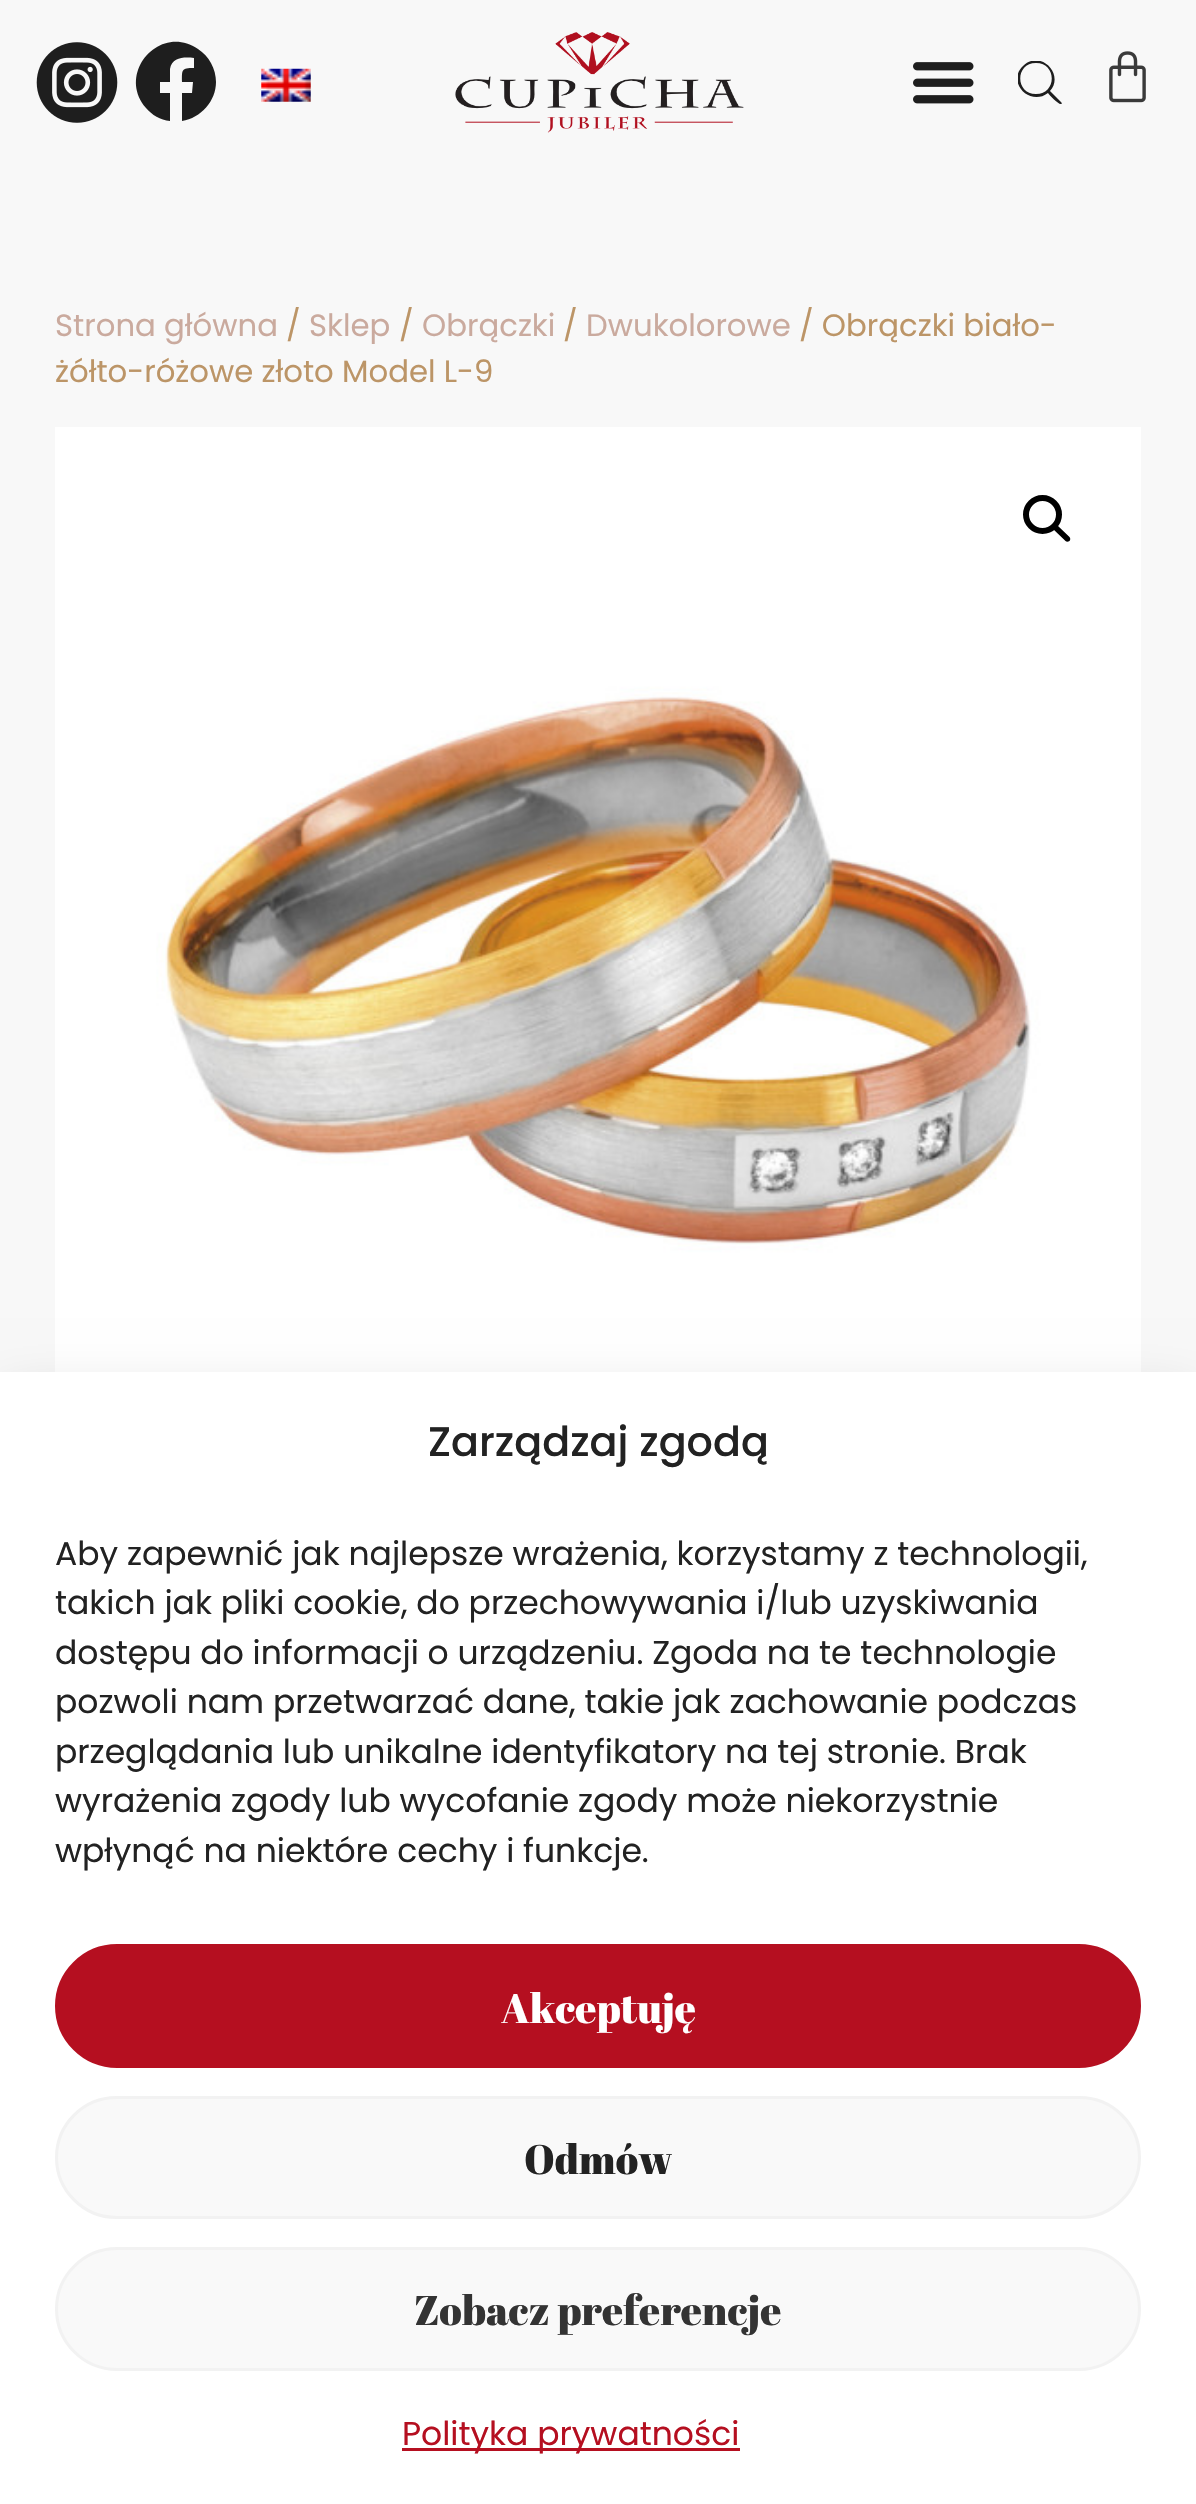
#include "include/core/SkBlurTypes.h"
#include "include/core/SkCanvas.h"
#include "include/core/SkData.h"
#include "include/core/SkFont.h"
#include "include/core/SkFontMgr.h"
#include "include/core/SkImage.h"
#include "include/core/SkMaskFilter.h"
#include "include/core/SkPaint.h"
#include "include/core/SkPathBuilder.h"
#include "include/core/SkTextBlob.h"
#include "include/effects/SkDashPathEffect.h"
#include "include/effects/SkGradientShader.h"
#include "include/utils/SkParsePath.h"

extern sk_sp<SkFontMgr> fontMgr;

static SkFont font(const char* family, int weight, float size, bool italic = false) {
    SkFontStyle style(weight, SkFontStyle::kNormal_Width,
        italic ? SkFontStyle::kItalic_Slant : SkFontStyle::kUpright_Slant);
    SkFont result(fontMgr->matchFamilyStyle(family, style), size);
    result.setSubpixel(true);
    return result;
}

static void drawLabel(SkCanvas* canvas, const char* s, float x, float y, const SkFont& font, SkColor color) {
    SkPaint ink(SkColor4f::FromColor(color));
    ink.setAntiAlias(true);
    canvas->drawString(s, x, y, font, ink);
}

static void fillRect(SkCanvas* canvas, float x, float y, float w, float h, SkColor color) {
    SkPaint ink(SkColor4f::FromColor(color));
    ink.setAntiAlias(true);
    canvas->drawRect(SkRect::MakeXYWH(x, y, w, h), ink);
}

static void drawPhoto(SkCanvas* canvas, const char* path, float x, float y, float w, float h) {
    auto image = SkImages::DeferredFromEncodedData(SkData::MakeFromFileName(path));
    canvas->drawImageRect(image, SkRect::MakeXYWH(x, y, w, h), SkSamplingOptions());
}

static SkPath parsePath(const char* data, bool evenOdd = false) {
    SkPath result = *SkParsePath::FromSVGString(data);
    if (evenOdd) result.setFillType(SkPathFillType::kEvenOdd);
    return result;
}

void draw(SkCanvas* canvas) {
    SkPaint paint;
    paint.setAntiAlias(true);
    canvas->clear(0xFFF8F8F8);
    drawPhoto(canvas, "assets/img1.png", 36, 42, 82, 81);
    paint.setColor(0xFF1E1E1E);
    canvas->drawPath(parsePath("M216 82C216 101 201 118 182 121V93H192L193 82H182C182 70 181 68 194 68V58C184 57 172 57 170 69V82H160V93H170V121C160 120 152 115 146 108C116 73 160 23 198 49C209 56 216 69 216 82Z"), paint);
    drawPhoto(canvas, "assets/img2.png", 261, 68, 50, 34);
    drawPhoto(canvas, "assets/img3.png", 455, 32, 289, 101);
    drawPhoto(canvas, "assets/img4.png", 913, 62, 61, 42);
    canvas->save();
    canvas->clipRect(SkRect::MakeXYWH(1018, 61, 44, 44));
    canvas->drawPath(parsePath("M1061 102L1050 91C1065 74 1040 49 1023 66C1006 82 1030 107 1048 93C1049 95 1059 105 1061 104C1062 104 1062 103 1061 102ZM1036 94C1015 94 1015 63 1036 63C1057 63 1057 94 1036 94Z"), paint);
    canvas->restore();
    drawPhoto(canvas, "assets/img5.png", 1109, 51, 37, 52);
    SkFont font1 = font("Poppins", 400, 30.75f);
    drawLabel(canvas, "Strona główna", 55, 336, font1, 0xFFCAAA9E);
    drawLabel(canvas, "/", 286, 336, font1, 0xFFBC9567);
    drawLabel(canvas, "Sklep", 309, 336, font1, 0xFFCAAA9E);
    drawLabel(canvas, "/", 399, 336, font1, 0xFFBC9567);
    drawLabel(canvas, "Obrączki", 422, 336, font1, 0xFFCAAA9E);
    drawLabel(canvas, "/", 563, 336, font1, 0xFFBC9567);
    drawLabel(canvas, "Dwukolorowe", 586, 336, font1, 0xFFCAAA9E);
    drawLabel(canvas, "/ Obrączki biało-", 799, 336, font1, 0xFFBC9567);
    drawLabel(canvas, "żółto-różowe złoto Model L-9", 55, 382, font1, 0xFFBC9567);
    drawPhoto(canvas, "assets/img6.png", 55, 427, 1086, 945);
    paint.setStroke(true);
    paint.setStrokeWidth(6);
    paint.setColor(0xFF000000);
    canvas->drawCircle(1042.5f, 514.5f, 16.5f, paint);
    paint.setStroke(false);
    canvas->drawPath(parsePath("M1053.5 525.5C1055 524.5 1056.5 524.5 1057.5 525.5L1069.5 537C1070.5 538 1070.5 540 1069.5 541C1068 542 1066.5 542 1065.5 541L1053.5 529.5C1052.5 528 1052.5 526.5 1053.5 525.5Z"), paint);
    paint.setColor(0x30000000);
    paint.setMaskFilter(SkMaskFilter::MakeBlur(kNormal_SkBlurStyle, 27.5f));
    canvas->drawRect(SkRect::MakeXYWH(0, 1400, 1196, 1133), paint);
    paint.setMaskFilter(nullptr);
    fillRect(canvas, 0, 1372, 1196, 1132, 0xFFFFFFFF);
    SkFont font2 = font("Poppins", 500, 41.25f);
    drawLabel(canvas, "Zarządzaj zgodą", 428, 1456, font2, 0xFF222222);
    SkFont font3 = font("Poppins", 400, 33);
    drawLabel(canvas, "Aby zapewnić jak najlepsze wrażenia, korzystamy z technologii,", 55, 1565, font3, 0xFF222222);
    drawLabel(canvas, "takich jak pliki cookie, do przechowywania i/lub uzyskiwania", 55, 1614, font3, 0xFF222222);
    drawLabel(canvas, "dostępu do informacji o urządzeniu. Zgoda na te technologie", 55, 1664, font3, 0xFF222222);
    drawLabel(canvas, "pozwoli nam przetwarzać dane, takie jak zachowanie podczas", 55, 1713, font3, 0xFF222222);
    drawLabel(canvas, "przeglądania lub unikalne identyfikatory na tej stronie. Brak", 55, 1763, font3, 0xFF222222);
    drawLabel(canvas, "wyrażenia zgody lub wycofanie zgody może niekorzystnie", 55, 1812, font3, 0xFF222222);
    drawLabel(canvas, "wpłynąć na niektóre cechy i funkcje.", 55, 1862, font3, 0xFF222222);
    paint.setColor(0xFFB50F20);
    canvas->drawRoundRect(SkRect::MakeXYWH(56.5f, 1945.5f, 1083, 121), 60.5f, 60.5f, paint);
    paint.setStroke(true);
    paint.setStrokeWidth(3);
    canvas->drawRoundRect(SkRect::MakeXYWH(56.5f, 1945.5f, 1083, 121), 60.5f, 60.5f, paint);
    SkFont font4 = font("Abril Fatface", 400, 41.25f);
    drawLabel(canvas, "Akceptuję", 501, 2023, font4, 0xFFFFFFFF);
    paint.setStroke(false);
    paint.setColor(0xFFF9F9F9);
    canvas->drawRoundRect(SkRect::MakeXYWH(56.5f, 2097.5f, 1083, 120), 60, 60, paint);
    paint.setStroke(true);
    paint.setColor(0xFFF2F2F2);
    canvas->drawRoundRect(SkRect::MakeXYWH(56.5f, 2097.5f, 1083, 120), 60, 60, paint);
    drawLabel(canvas, "Odmów", 524, 2174, font4, 0xFF222222);
    paint.setStroke(false);
    paint.setColor(0xFFF9F9F9);
    canvas->drawRoundRect(SkRect::MakeXYWH(56.5f, 2248.5f, 1083, 121), 60.5f, 60.5f, paint);
    paint.setStroke(true);
    paint.setColor(0xFFF2F2F2);
    canvas->drawRoundRect(SkRect::MakeXYWH(56.5f, 2248.5f, 1083, 121), 60.5f, 60.5f, paint);
    drawLabel(canvas, "Zobacz preferencje", 414, 2325, font4, 0xFF333333);
    fillRect(canvas, 402, 2448, 338, 3, 0xFFB50F20);
    drawLabel(canvas, "Polityka prywatności", 402, 2445, font3, 0xFFB50F20);
}
